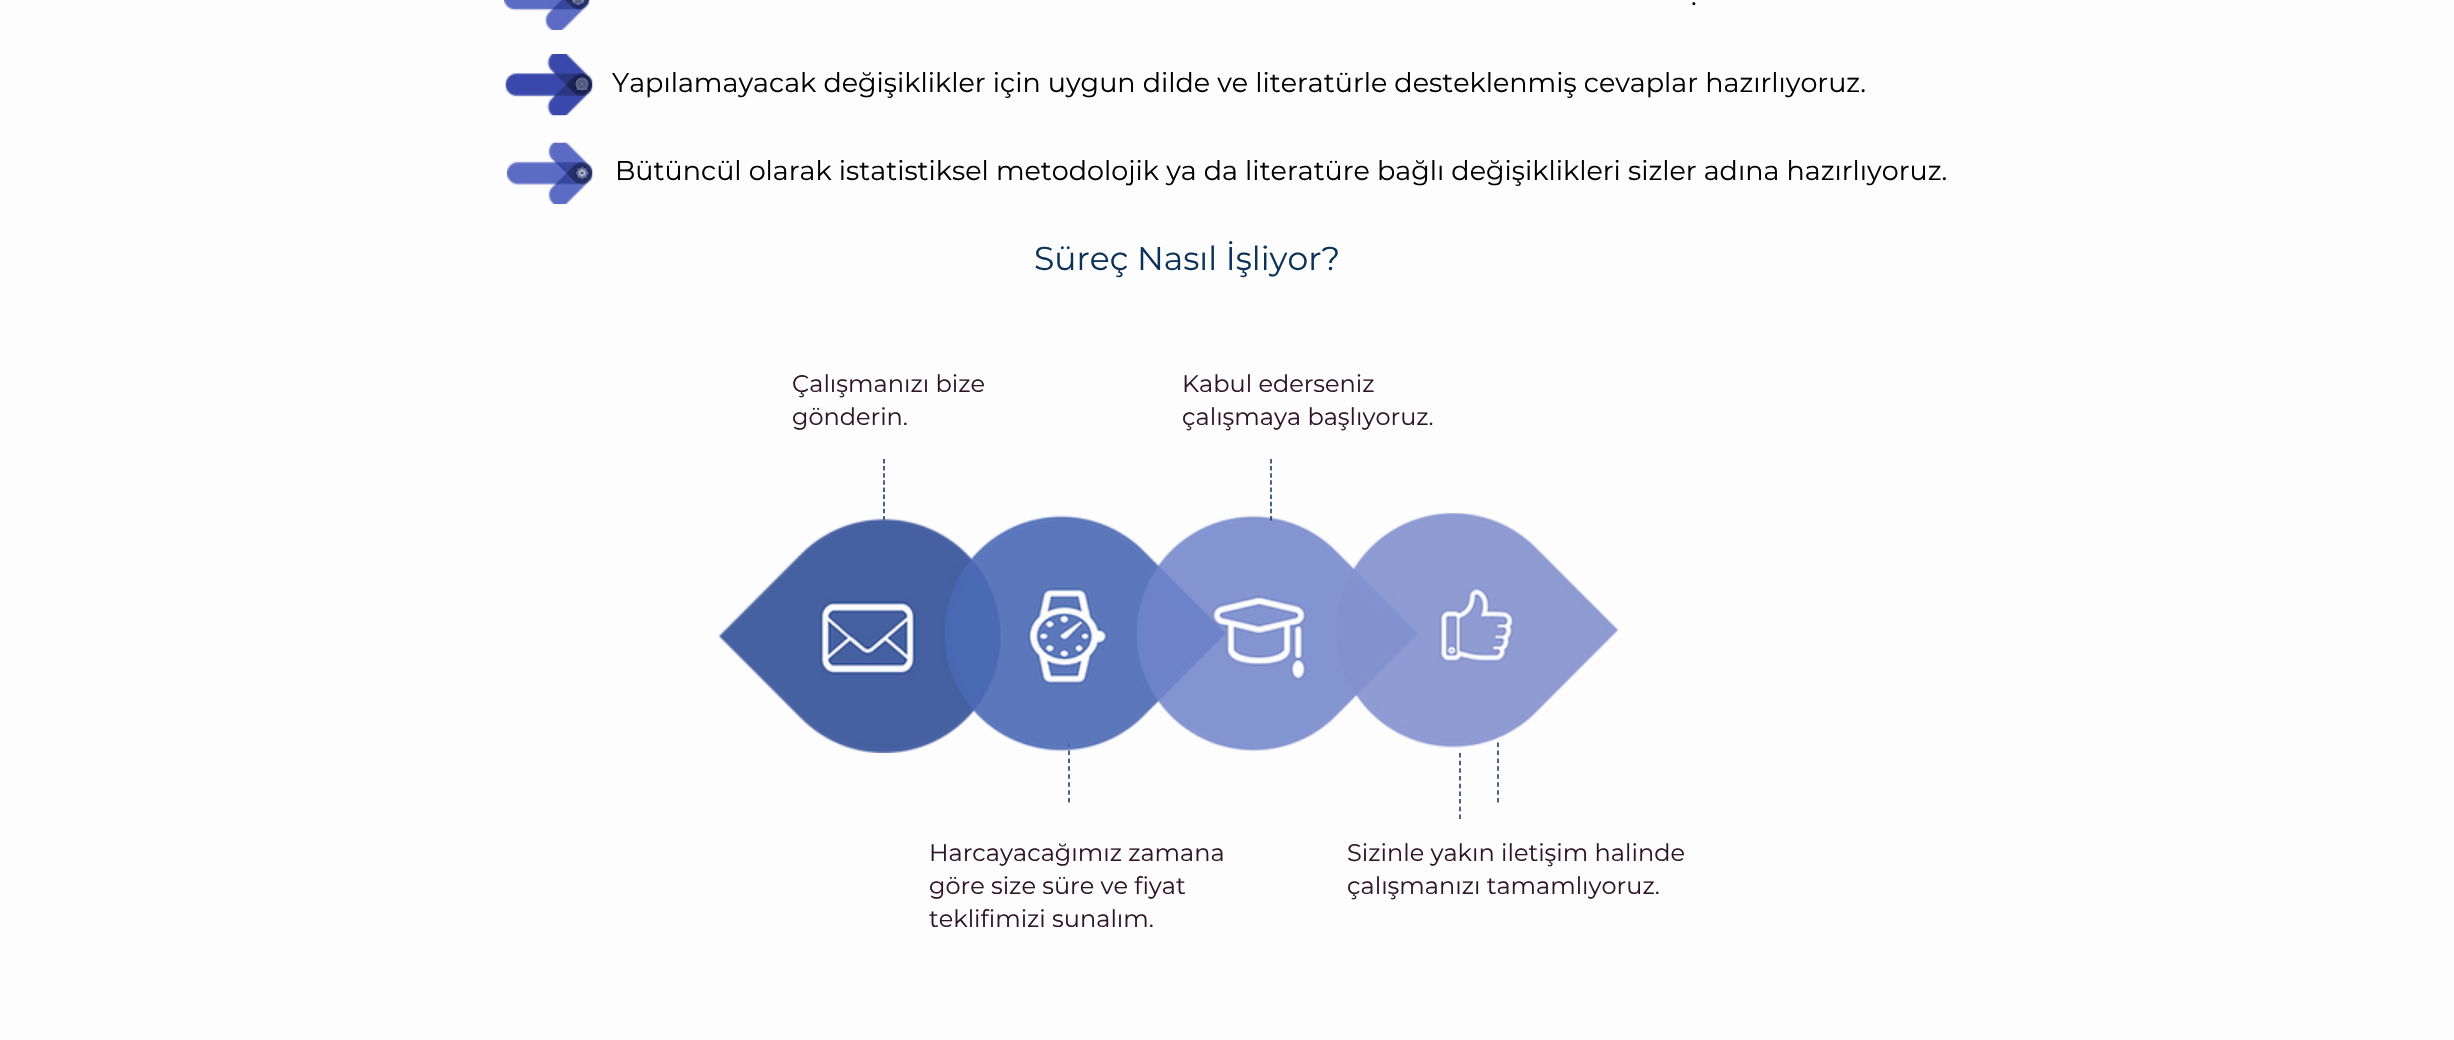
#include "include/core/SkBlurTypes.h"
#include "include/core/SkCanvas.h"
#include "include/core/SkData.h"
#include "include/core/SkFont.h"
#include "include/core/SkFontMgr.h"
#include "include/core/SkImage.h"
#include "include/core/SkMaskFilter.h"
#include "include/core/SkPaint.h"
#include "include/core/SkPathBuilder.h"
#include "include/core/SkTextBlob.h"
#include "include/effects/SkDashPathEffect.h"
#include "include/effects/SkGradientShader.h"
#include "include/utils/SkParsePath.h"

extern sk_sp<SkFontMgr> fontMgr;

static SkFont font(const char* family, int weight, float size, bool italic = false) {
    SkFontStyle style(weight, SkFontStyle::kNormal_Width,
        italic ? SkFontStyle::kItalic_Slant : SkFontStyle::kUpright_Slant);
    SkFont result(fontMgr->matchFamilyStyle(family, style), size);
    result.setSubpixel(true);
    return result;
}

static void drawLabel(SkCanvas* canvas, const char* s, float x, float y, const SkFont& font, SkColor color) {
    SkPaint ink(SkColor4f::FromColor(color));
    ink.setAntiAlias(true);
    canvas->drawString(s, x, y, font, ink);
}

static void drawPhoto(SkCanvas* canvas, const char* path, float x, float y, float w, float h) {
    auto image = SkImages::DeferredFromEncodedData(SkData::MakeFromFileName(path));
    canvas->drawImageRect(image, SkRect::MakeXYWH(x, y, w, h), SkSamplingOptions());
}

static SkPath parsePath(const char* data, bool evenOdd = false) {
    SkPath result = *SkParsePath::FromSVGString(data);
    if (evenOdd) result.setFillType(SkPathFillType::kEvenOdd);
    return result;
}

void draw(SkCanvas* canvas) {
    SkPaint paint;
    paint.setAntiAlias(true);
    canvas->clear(0xFFFEFDFD);
    drawPhoto(canvas, "assets/img1.png", 504, 0, 86, 30);
    SkFont font1 = font("Montserrat", 400, 27);
    drawLabel(canvas, ".", 1691, 5, font1, 0xFF000000);
    drawPhoto(canvas, "assets/img2.png", 505, 54, 88, 62);
    drawLabel(canvas, "Yapılamayacak değişiklikler için uygun dilde ve literatürle desteklenmiş cevaplar hazırlıyoruz.", 612, 92, font1, 0xFF000000);
    drawPhoto(canvas, "assets/img3.png", 507, 142, 86, 62);
    drawLabel(canvas, "Bütüncül olarak istatistiksel metodolojik ya da literatüre bağlı değişiklikleri sizler adına hazırlıyoruz.", 615, 180, font1, 0xFF000000);
    SkFont font2 = font("Montserrat", 400, 33);
    drawLabel(canvas, "Süreç Nasıl İşliyor?", 1034, 270, font2, 0xFF0B3259);
    SkFont font3 = font("Montserrat", 400, 24);
    drawLabel(canvas, "Çalışmanızı bize", 792, 392, font3, 0xFF2D1622);
    drawLabel(canvas, "gönderin.", 792, 425, font3, 0xFF2D1622);
    drawLabel(canvas, "Kabul ederseniz", 1182, 392, font3, 0xFF2D1622);
    drawLabel(canvas, "çalışmaya başlıyoruz.", 1182, 425, font3, 0xFF2D1622);
    paint.setStroke(true);
    paint.setStrokeWidth(1.5f);
    paint.setColor(0xFF0B3259);
    paint.setPathEffect(SkDashPathEffect::Make({{4.5f, 2.62f}}, 0));
    canvas->drawPath(parsePath("M884 459V520.5"), paint);
    paint.setPathEffect(nullptr);
    paint.setPathEffect(SkDashPathEffect::Make({{4.5f, 3.44f}}, 0));
    canvas->drawPath(parsePath("M1069 742.5V802.5"), paint);
    paint.setPathEffect(nullptr);
    drawPhoto(canvas, "assets/img4.png", 718, 513, 901, 240);
    paint.setPathEffect(SkDashPathEffect::Make({{4.5f, 2.62f}}, 0));
    canvas->drawPath(parsePath("M1271 459V520.5"), paint);
    paint.setPathEffect(nullptr);
    paint.setPathEffect(SkDashPathEffect::Make({{4.5f, 3.18f}}, 0));
    canvas->drawPath(parsePath("M1460 753V819"), paint);
    paint.setPathEffect(nullptr);
    paint.setPathEffect(SkDashPathEffect::Make({{4.5f, 3.44f}}, 0));
    canvas->drawPath(parsePath("M1498 742.5V802.5"), paint);
    paint.setPathEffect(nullptr);
    drawLabel(canvas, "Harcayacağımız zamana", 929, 861, font3, 0xFF2D1622);
    drawLabel(canvas, "göre size süre ve fiyat", 929, 894, font3, 0xFF2D1622);
    drawLabel(canvas, "teklifimizi sunalım.", 929, 927, font3, 0xFF2D1622);
    drawLabel(canvas, "Sizinle yakın iletişim halinde", 1347, 861, font3, 0xFF2D1622);
    drawLabel(canvas, "çalışmanızı tamamlıyoruz.", 1347, 894, font3, 0xFF2D1622);
}
